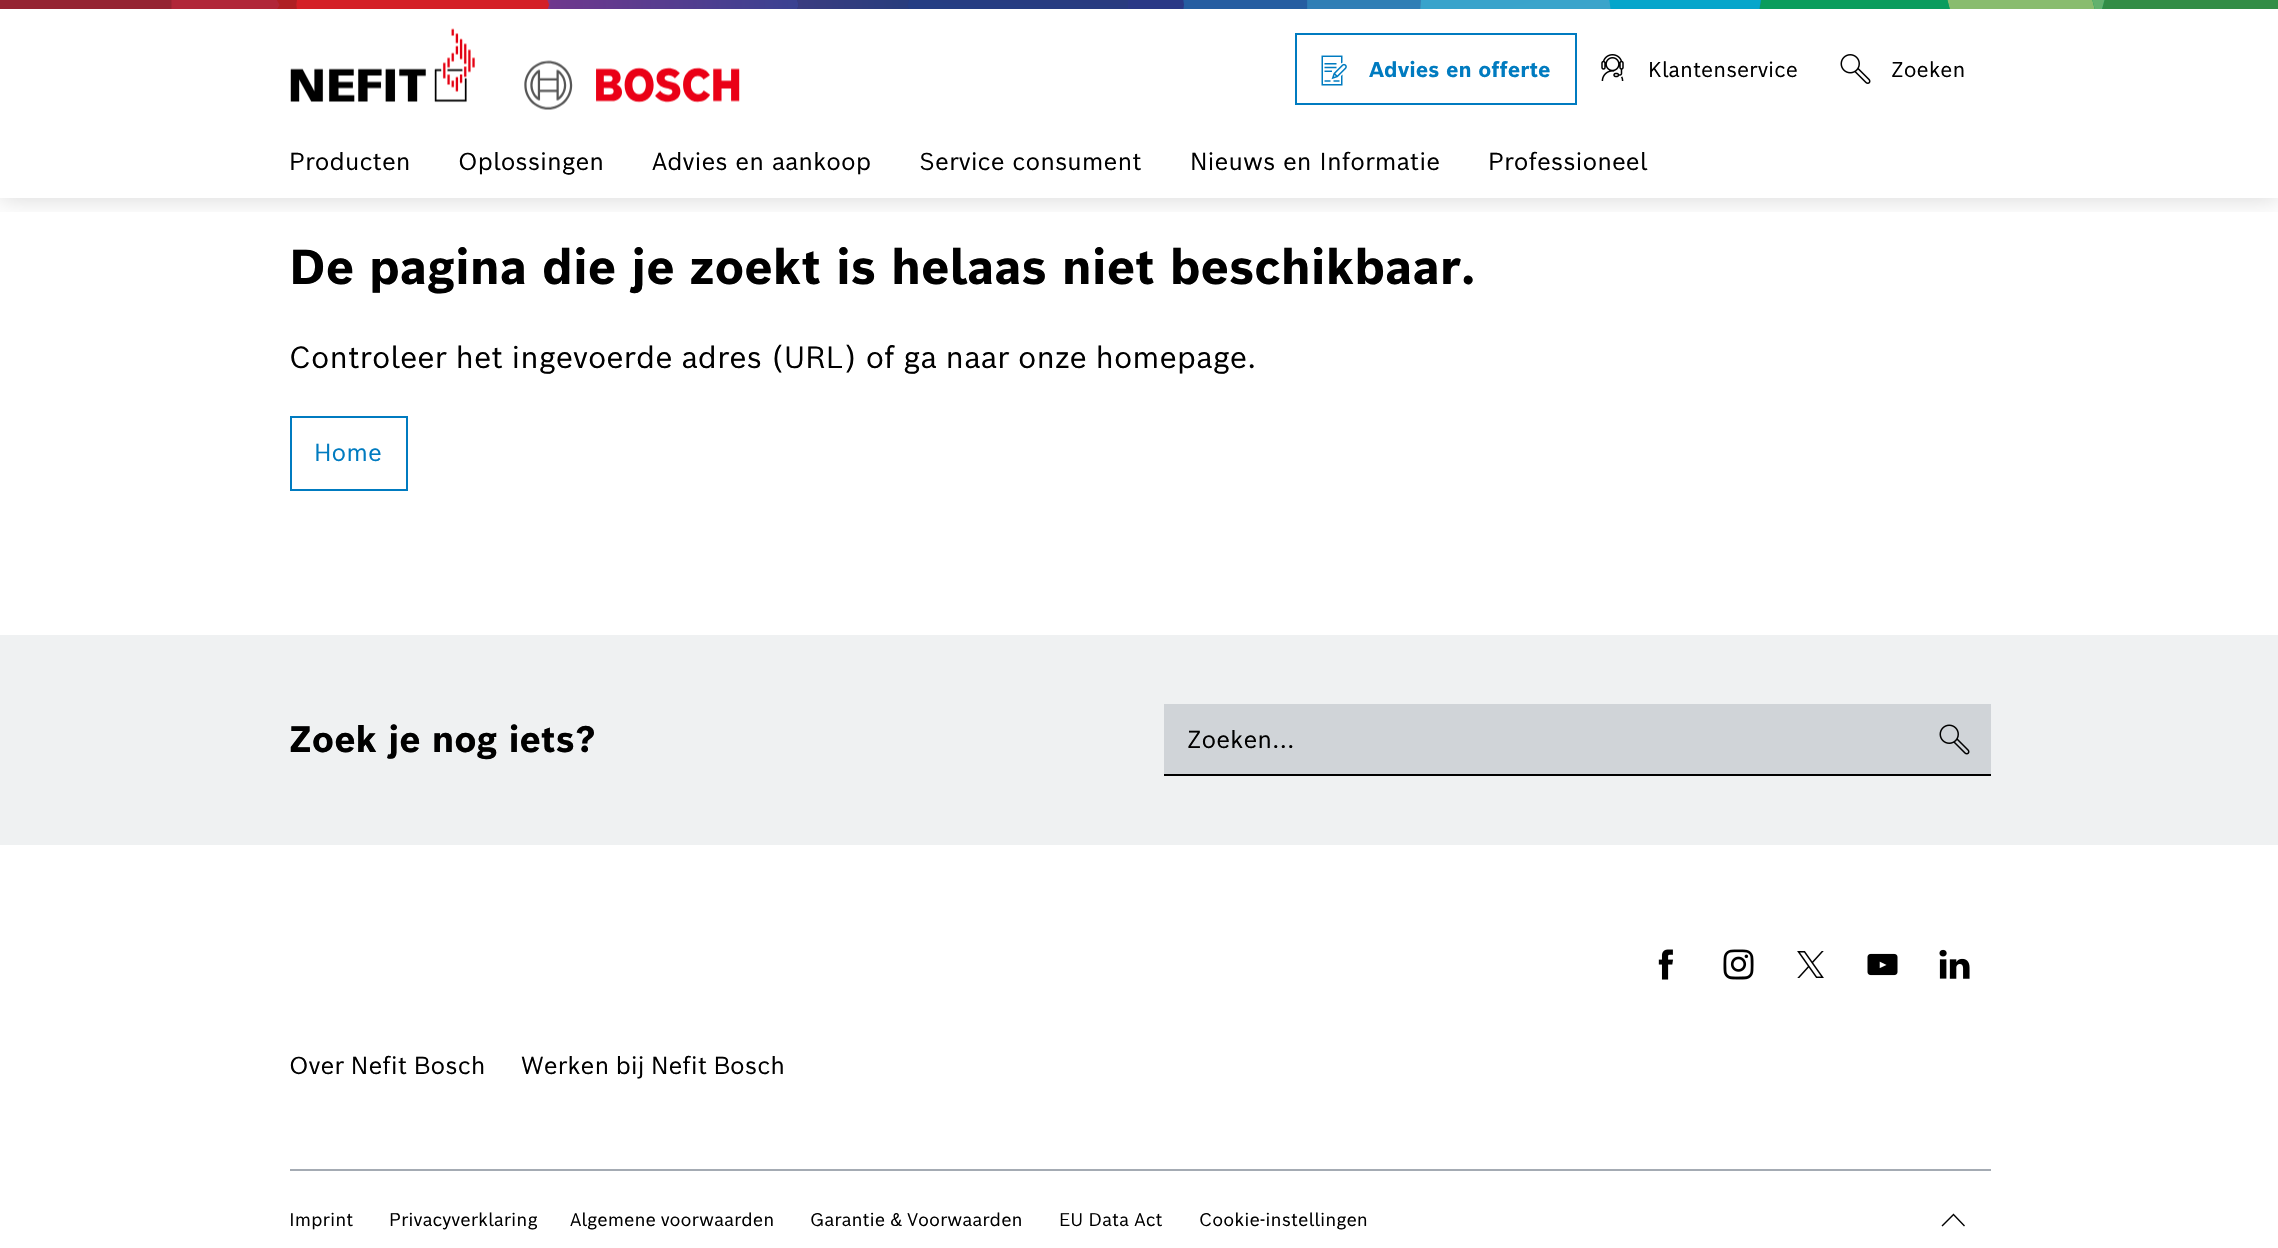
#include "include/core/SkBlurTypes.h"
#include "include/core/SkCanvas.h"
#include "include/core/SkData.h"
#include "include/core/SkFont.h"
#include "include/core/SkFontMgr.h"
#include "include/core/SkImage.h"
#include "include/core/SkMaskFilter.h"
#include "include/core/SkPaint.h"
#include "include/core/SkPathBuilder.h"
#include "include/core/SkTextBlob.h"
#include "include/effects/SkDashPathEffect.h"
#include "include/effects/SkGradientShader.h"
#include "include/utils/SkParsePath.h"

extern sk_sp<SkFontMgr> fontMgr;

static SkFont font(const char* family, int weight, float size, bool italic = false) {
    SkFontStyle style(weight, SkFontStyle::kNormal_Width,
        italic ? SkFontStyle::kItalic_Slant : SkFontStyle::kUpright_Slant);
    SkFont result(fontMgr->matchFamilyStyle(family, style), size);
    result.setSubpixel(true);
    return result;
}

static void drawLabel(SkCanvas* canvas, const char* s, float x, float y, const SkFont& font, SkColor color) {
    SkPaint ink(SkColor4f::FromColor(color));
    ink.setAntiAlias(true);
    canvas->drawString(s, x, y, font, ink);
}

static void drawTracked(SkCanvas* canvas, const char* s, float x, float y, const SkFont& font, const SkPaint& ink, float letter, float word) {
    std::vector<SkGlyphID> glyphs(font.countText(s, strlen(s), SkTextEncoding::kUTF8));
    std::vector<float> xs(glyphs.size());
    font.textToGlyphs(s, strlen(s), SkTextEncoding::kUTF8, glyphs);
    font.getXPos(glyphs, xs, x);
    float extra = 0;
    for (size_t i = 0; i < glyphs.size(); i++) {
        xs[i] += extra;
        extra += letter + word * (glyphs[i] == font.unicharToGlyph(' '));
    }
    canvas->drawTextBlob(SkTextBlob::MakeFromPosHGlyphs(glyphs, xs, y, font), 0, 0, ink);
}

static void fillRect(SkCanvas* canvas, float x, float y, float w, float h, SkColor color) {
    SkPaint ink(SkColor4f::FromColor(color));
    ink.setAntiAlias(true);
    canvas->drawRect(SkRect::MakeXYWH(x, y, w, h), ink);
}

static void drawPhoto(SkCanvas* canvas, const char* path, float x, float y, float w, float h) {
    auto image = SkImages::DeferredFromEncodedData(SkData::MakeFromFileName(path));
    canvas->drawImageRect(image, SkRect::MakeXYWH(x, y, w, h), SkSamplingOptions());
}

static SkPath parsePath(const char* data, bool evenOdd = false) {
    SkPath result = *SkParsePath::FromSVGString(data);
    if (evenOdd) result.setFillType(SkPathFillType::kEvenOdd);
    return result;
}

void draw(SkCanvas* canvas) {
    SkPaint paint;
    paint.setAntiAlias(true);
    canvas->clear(0xFFFFFFFF);
    canvas->save();
    canvas->clipRect(SkRect::MakeXYWH(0, 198, 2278, 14));
    paint.setColor(0x29000000);
    paint.setMaskFilter(SkMaskFilter::MakeBlur(kNormal_SkBlurStyle, 12));
    canvas->drawRect(SkRect::MakeXYWH(0, -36, 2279, 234), paint);
    paint.setMaskFilter(nullptr);
    canvas->restore();
    drawPhoto(canvas, "assets/img1.png", 0, 0, 2278, 9);
    drawPhoto(canvas, "assets/img2.png", 290, 28, 450, 82);
    paint.setStroke(true);
    paint.setStrokeWidth(2);
    paint.setColor(0xFF007BC0);
    canvas->drawRect(SkRect::MakeXYWH(1296, 34, 280, 70), paint);
    drawPhoto(canvas, "assets/img3.png", 1321, 55, 26, 31);
    SkFont font1 = font("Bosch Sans", 700, 21);
    drawLabel(canvas, "Advies en offerte", 1369, 77, font1, 0xFF007BC0);
    drawPhoto(canvas, "assets/img4.png", 1601, 54, 23, 27);
    SkFont font2 = font("Bosch Sans", 400, 21);
    drawLabel(canvas, "Klantenservice", 1648, 77, font2, 0xFF000000);
    drawPhoto(canvas, "assets/img5.png", 1840, 54, 31, 30);
    drawLabel(canvas, "Zoeken", 1891, 77, font2, 0xFF000000);
    SkFont font3 = font("Bosch Sans", 400, 24);
    drawLabel(canvas, "Producten", 289, 170, font3, 0xFF000000);
    drawLabel(canvas, "Oplossingen", 458, 170, font3, 0xFF000000);
    drawLabel(canvas, "Advies en aankoop", 652, 170, font3, 0xFF000000);
    drawLabel(canvas, "Service consument", 919, 170, font3, 0xFF000000);
    drawLabel(canvas, "Nieuws en Informatie", 1190, 170, font3, 0xFF000000);
    drawLabel(canvas, "Professioneel", 1488, 170, font3, 0xFF000000);
    SkFont font4 = font("Bosch Sans", 700, 48);
    paint.setStroke(false);
    paint.setColor(0xFF000000);
    drawTracked(canvas, "De pagina die je zoekt is helaas niet beschikbaar.", 289, 284, font4, paint, 0, -0.5f);
    SkFont font5 = font("Bosch Sans", 400, 30);
    drawTracked(canvas, "Controleer het ingevoerde adres (URL) of ga naar onze homepage.", 289, 368, font5, paint, 0, -1);
    paint.setStroke(true);
    paint.setColor(0xFF007BC0);
    canvas->drawRect(SkRect::MakeXYWH(291, 417, 116, 73), paint);
    drawLabel(canvas, "Home", 314, 461, font3, 0xFF007BC0);
    fillRect(canvas, 0, 635, 2278, 210, 0xFFEFF1F2);
    SkFont font6 = font("Bosch Sans", 700, 36);
    paint.setStroke(false);
    paint.setColor(0xFF000000);
    drawTracked(canvas, "Zoek je nog iets?", 289, 752, font6, paint, 0, -0.5f);
    fillRect(canvas, 1164, 704, 827, 70, 0xFFD0D4D8);
    fillRect(canvas, 1164, 774, 827, 2, 0xFF000000);
    drawLabel(canvas, "Zoeken...", 1187, 748, font3, 0xFF000000);
    drawPhoto(canvas, "assets/img6.png", 1939, 724, 31, 31);
    drawPhoto(canvas, "assets/img7.png", 1658, 949, 15, 31);
    drawPhoto(canvas, "assets/img8.png", 1723, 949, 31, 31);
    drawPhoto(canvas, "assets/img9.png", 1797, 951, 27, 27);
    drawPhoto(canvas, "assets/img10.png", 1867, 953, 31, 23);
    drawPhoto(canvas, "assets/img11.png", 1939, 949, 31, 30);
    drawTracked(canvas, "Over Nefit Bosch", 289, 1074, font3, paint, 0, -1);
    drawTracked(canvas, "Werken bij Nefit Bosch", 521, 1074, font3, paint, 0, -1.5f);
    fillRect(canvas, 290, 1169, 1701, 2, 0xFFA4ABB3);
    SkFont font7 = font("Bosch Sans", 400, 18);
    drawLabel(canvas, "Imprint", 289, 1226, font7, 0xFF000000);
    drawLabel(canvas, "Privacyverklaring", 389, 1226, font7, 0xFF000000);
    drawTracked(canvas, "Algemene voorwaarden", 570, 1226, font7, paint, 0, -1);
    drawTracked(canvas, "Garantie & Voorwaarden", 810, 1226, font7, paint, 0, -1);
    drawTracked(canvas, "EU Data Act", 1059, 1226, font7, paint, 0, -0.5f);
    drawLabel(canvas, "Cookie-instellingen", 1199, 1226, font7, 0xFF000000);
    canvas->drawPath(parsePath("M1965 1225.5L1964 1226.5L1953.5 1215.5L1942.5 1226.5L1941.5 1225.5L1953.5 1213.5Z"), paint);
}
